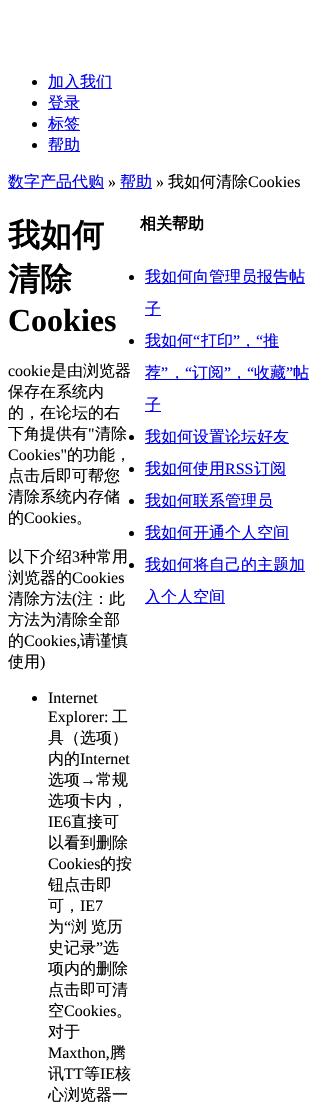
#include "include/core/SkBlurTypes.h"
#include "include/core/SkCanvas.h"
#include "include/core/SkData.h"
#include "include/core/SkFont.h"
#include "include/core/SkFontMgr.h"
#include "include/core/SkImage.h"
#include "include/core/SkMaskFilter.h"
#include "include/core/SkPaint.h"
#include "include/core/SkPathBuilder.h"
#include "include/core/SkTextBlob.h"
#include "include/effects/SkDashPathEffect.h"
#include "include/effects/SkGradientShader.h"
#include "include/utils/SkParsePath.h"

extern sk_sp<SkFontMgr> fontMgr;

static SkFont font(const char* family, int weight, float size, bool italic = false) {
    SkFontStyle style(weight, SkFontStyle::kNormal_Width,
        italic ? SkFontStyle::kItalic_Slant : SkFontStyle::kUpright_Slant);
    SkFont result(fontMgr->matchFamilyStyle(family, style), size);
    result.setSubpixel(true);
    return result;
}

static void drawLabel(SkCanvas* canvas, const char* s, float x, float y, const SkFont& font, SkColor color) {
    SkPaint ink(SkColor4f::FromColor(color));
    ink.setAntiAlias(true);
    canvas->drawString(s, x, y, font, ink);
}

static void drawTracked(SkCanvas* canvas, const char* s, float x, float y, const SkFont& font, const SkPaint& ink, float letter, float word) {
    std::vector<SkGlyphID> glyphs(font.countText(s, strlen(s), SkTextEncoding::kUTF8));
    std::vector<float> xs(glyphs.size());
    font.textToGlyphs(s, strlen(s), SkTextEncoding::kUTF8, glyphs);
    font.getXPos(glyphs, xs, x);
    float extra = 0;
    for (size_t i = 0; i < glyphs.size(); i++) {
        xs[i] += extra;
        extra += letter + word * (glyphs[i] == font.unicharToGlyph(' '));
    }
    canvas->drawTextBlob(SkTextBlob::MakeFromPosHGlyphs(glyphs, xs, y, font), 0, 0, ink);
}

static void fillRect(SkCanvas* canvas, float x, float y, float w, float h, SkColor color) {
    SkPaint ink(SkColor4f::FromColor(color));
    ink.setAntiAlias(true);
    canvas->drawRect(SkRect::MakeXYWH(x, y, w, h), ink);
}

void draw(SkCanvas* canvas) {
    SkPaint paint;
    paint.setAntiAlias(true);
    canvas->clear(0xFFFFFFFF);
    paint.setColor(0xFF000000);
    canvas->drawCircle(34.5f, 82.5f, 2.5f, paint);
    fillRect(canvas, 48, 88, 64, 1, 0xFF0000EE);
    SkFont font1 = font("WenQuanYi Zen Hei", 500, 16);
    drawLabel(canvas, "加入我们", 48, 87, font1, 0xFF0000EE);
    canvas->drawCircle(34.5f, 103.5f, 2.5f, paint);
    fillRect(canvas, 48, 109, 32, 1, 0xFF0000EE);
    drawLabel(canvas, "登录", 48, 108, font1, 0xFF0000EE);
    canvas->drawCircle(34.5f, 124.5f, 2.5f, paint);
    fillRect(canvas, 48, 130, 32, 1, 0xFF0000EE);
    drawLabel(canvas, "标签", 48, 129, font1, 0xFF0000EE);
    canvas->drawCircle(34.5f, 145.5f, 2.5f, paint);
    fillRect(canvas, 48, 151, 32, 1, 0xFF0000EE);
    drawLabel(canvas, "帮助", 48, 150, font1, 0xFF0000EE);
    fillRect(canvas, 8, 188, 96, 1, 0xFF0000EE);
    drawLabel(canvas, "数字产品代购", 8, 187, font1, 0xFF0000EE);
    SkFont font2 = font("Liberation Serif", 400, 16);
    drawLabel(canvas, "»", 108, 187, font2, 0xFF000000);
    fillRect(canvas, 120, 188, 32, 1, 0xFF0000EE);
    drawLabel(canvas, "帮助", 120, 187, font1, 0xFF0000EE);
    drawLabel(canvas, "»", 156, 187, font2, 0xFF000000);
    drawLabel(canvas, "我如何清除", 168, 187, font1, 0xFF000000);
    drawLabel(canvas, "Cookies", 248, 187, font2, 0xFF000000);
    SkFont font3 = font("WenQuanYi Zen Hei", 700, 32);
    drawLabel(canvas, "我如何", 8, 246, font3, 0xFF000000);
    drawLabel(canvas, "清除", 8, 290, font3, 0xFF000000);
    SkFont font4 = font("Liberation Serif", 700, 32);
    drawLabel(canvas, "Cookies", 8, 331, font4, 0xFF000000);
    drawLabel(canvas, "cookie", 8, 376, font2, 0xFF000000);
    drawLabel(canvas, "是由浏览器", 51, 376, font1, 0xFF000000);
    drawLabel(canvas, "保存在系统内", 8, 397, font1, 0xFF000000);
    drawLabel(canvas, "的，在论坛的右", 8, 418, font1, 0xFF000000);
    drawLabel(canvas, "下角提供有", 8, 439, font1, 0xFF000000);
    drawLabel(canvas, "\"", 88, 439, font2, 0xFF000000);
    drawLabel(canvas, "清除", 95, 439, font1, 0xFF000000);
    drawLabel(canvas, "Cookies\"", 8, 460, font2, 0xFF000000);
    drawLabel(canvas, "的功能，", 67, 460, font1, 0xFF000000);
    drawLabel(canvas, "点击后即可帮您", 8, 481, font1, 0xFF000000);
    drawLabel(canvas, "清除系统内存储", 8, 502, font1, 0xFF000000);
    drawLabel(canvas, "的", 8, 523, font1, 0xFF000000);
    drawLabel(canvas, "Cookies", 24, 523, font2, 0xFF000000);
    drawLabel(canvas, "。", 76, 523, font1, 0xFF000000);
    drawLabel(canvas, "以下介绍", 8, 562, font1, 0xFF000000);
    drawLabel(canvas, "3", 72, 562, font2, 0xFF000000);
    drawLabel(canvas, "种常用", 80, 562, font1, 0xFF000000);
    drawLabel(canvas, "浏览器的", 8, 583, font1, 0xFF000000);
    drawLabel(canvas, "Cookies", 72, 583, font2, 0xFF000000);
    drawLabel(canvas, "清除方法", 8, 604, font1, 0xFF000000);
    drawLabel(canvas, "(", 72, 604, font2, 0xFF000000);
    drawLabel(canvas, "注：此", 77, 604, font1, 0xFF000000);
    drawLabel(canvas, "方法为清除全部", 8, 625, font1, 0xFF000000);
    drawLabel(canvas, "的", 8, 646, font1, 0xFF000000);
    drawLabel(canvas, "Cookies,", 24, 646, font2, 0xFF000000);
    drawLabel(canvas, "请谨慎", 80, 646, font1, 0xFF000000);
    drawLabel(canvas, "使用", 8, 667, font1, 0xFF000000);
    drawLabel(canvas, ")", 40, 667, font2, 0xFF000000);
    canvas->drawCircle(34.5f, 698.5f, 2.5f, paint);
    drawLabel(canvas, "Internet", 48, 703, font2, 0xFF000000);
    drawLabel(canvas, "Explorer:", 48, 722, font2, 0xFF000000);
    drawLabel(canvas, "工", 112, 722, font1, 0xFF000000);
    drawLabel(canvas, "具（选项）", 48, 743, font1, 0xFF000000);
    drawLabel(canvas, "内的", 48, 764, font1, 0xFF000000);
    drawLabel(canvas, "Internet", 80, 764, font2, 0xFF000000);
    drawLabel(canvas, "选项", 48, 785, font1, 0xFF000000);
    drawLabel(canvas, "→", 80, 785, font2, 0xFF000000);
    drawLabel(canvas, "常规", 96, 785, font1, 0xFF000000);
    drawLabel(canvas, "选项卡内，", 48, 806, font1, 0xFF000000);
    drawLabel(canvas, "IE6", 48, 827, font2, 0xFF000000);
    drawLabel(canvas, "直接可", 71, 827, font1, 0xFF000000);
    drawLabel(canvas, "以看到删除", 48, 848, font1, 0xFF000000);
    drawLabel(canvas, "Cookies", 48, 869, font2, 0xFF000000);
    drawLabel(canvas, "的按", 100, 869, font1, 0xFF000000);
    drawLabel(canvas, "钮点击即", 48, 890, font1, 0xFF000000);
    drawLabel(canvas, "可，", 48, 911, font1, 0xFF000000);
    drawLabel(canvas, "IE7", 80, 911, font2, 0xFF000000);
    drawLabel(canvas, "为", 48, 932, font1, 0xFF000000);
    drawLabel(canvas, "“", 64, 932, font2, 0xFF000000);
    drawTracked(canvas, "浏 览历", 71, 932, font1, paint, 0, -1);
    drawLabel(canvas, "史记录", 48, 953, font1, 0xFF000000);
    drawLabel(canvas, "”", 96, 953, font2, 0xFF000000);
    drawLabel(canvas, "选", 103, 953, font1, 0xFF000000);
    drawLabel(canvas, "项内的删除", 48, 974, font1, 0xFF000000);
    drawLabel(canvas, "点击即可清", 48, 995, font1, 0xFF000000);
    drawLabel(canvas, "空", 48, 1016, font1, 0xFF000000);
    drawLabel(canvas, "Cookies", 64, 1016, font2, 0xFF000000);
    drawLabel(canvas, "。", 116, 1016, font1, 0xFF000000);
    drawLabel(canvas, "对于", 48, 1037, font1, 0xFF000000);
    drawLabel(canvas, "Maxthon,", 48, 1058, font2, 0xFF000000);
    drawLabel(canvas, "腾", 110, 1058, font1, 0xFF000000);
    drawLabel(canvas, "讯", 48, 1079, font1, 0xFF000000);
    drawLabel(canvas, "TT", 64, 1079, font2, 0xFF000000);
    drawLabel(canvas, "等", 84, 1079, font1, 0xFF000000);
    drawLabel(canvas, "IE", 100, 1079, font2, 0xFF000000);
    drawLabel(canvas, "核", 115, 1079, font1, 0xFF000000);
    drawLabel(canvas, "心浏览器一", 48, 1100, font1, 0xFF000000);
    SkFont font5 = font("WenQuanYi Zen Hei", 700, 16);
    drawLabel(canvas, "相关帮助", 140, 229, font5, 0xFF000000);
    canvas->drawCircle(131.5f, 277.5f, 2.5f, paint);
    fillRect(canvas, 145, 283, 160, 1, 0xFF0000EE);
    drawLabel(canvas, "我如何向管理员报告帖", 145, 282, font1, 0xFF0000EE);
    fillRect(canvas, 145, 315, 16, 1, 0xFF0000EE);
    drawLabel(canvas, "子", 145, 314, font1, 0xFF0000EE);
    fillRect(canvas, 145, 347, 134, 1, 0xFF0000EE);
    drawLabel(canvas, "我如何", 145, 346, font1, 0xFF0000EE);
    drawLabel(canvas, "“", 193, 346, font2, 0xFF0000EE);
    drawLabel(canvas, "打印", 201, 346, font1, 0xFF0000EE);
    drawLabel(canvas, "”", 233, 346, font2, 0xFF0000EE);
    drawLabel(canvas, "“", 256, 346, font2, 0xFF0000EE);
    drawLabel(canvas, "推", 263, 346, font1, 0xFF0000EE);
    canvas->drawCircle(131.5f, 341.5f, 2.5f, paint);
    drawLabel(canvas, "，", 240, 346, font1, 0xFF0000EE);
    fillRect(canvas, 145, 379, 164, 1, 0xFF0000EE);
    drawLabel(canvas, "荐", 145, 378, font1, 0xFF0000EE);
    drawLabel(canvas, "”", 161, 378, font2, 0xFF0000EE);
    drawLabel(canvas, "“", 185, 378, font2, 0xFF0000EE);
    drawLabel(canvas, "订阅", 192, 378, font1, 0xFF0000EE);
    drawLabel(canvas, "”", 224, 378, font2, 0xFF0000EE);
    drawLabel(canvas, "“", 247, 378, font2, 0xFF0000EE);
    drawLabel(canvas, "收藏", 254, 378, font1, 0xFF0000EE);
    drawLabel(canvas, "”", 286, 378, font2, 0xFF0000EE);
    drawLabel(canvas, "帖", 293, 378, font1, 0xFF0000EE);
    drawLabel(canvas, "，", 169, 378, font1, 0xFF0000EE);
    drawLabel(canvas, "，", 231, 378, font1, 0xFF0000EE);
    fillRect(canvas, 145, 411, 16, 1, 0xFF0000EE);
    drawLabel(canvas, "子", 145, 410, font1, 0xFF0000EE);
    canvas->drawCircle(131.5f, 437.5f, 2.5f, paint);
    fillRect(canvas, 145, 443, 144, 1, 0xFF0000EE);
    drawLabel(canvas, "我如何设置论坛好友", 145, 442, font1, 0xFF0000EE);
    canvas->drawCircle(131.5f, 469.5f, 2.5f, paint);
    fillRect(canvas, 145, 475, 141, 1, 0xFF0000EE);
    drawLabel(canvas, "我如何使用", 145, 474, font1, 0xFF0000EE);
    drawLabel(canvas, "RSS", 225, 474, font2, 0xFF0000EE);
    drawLabel(canvas, "订阅", 254, 474, font1, 0xFF0000EE);
    canvas->drawCircle(131.5f, 501.5f, 2.5f, paint);
    fillRect(canvas, 145, 507, 128, 1, 0xFF0000EE);
    drawLabel(canvas, "我如何联系管理员", 145, 506, font1, 0xFF0000EE);
    canvas->drawCircle(131.5f, 533.5f, 2.5f, paint);
    fillRect(canvas, 145, 539, 144, 1, 0xFF0000EE);
    drawLabel(canvas, "我如何开通个人空间", 145, 538, font1, 0xFF0000EE);
    canvas->drawCircle(131.5f, 565.5f, 2.5f, paint);
    fillRect(canvas, 145, 571, 160, 1, 0xFF0000EE);
    drawLabel(canvas, "我如何将自己的主题加", 145, 570, font1, 0xFF0000EE);
    fillRect(canvas, 145, 603, 80, 1, 0xFF0000EE);
    drawLabel(canvas, "入个人空间", 145, 602, font1, 0xFF0000EE);
}
